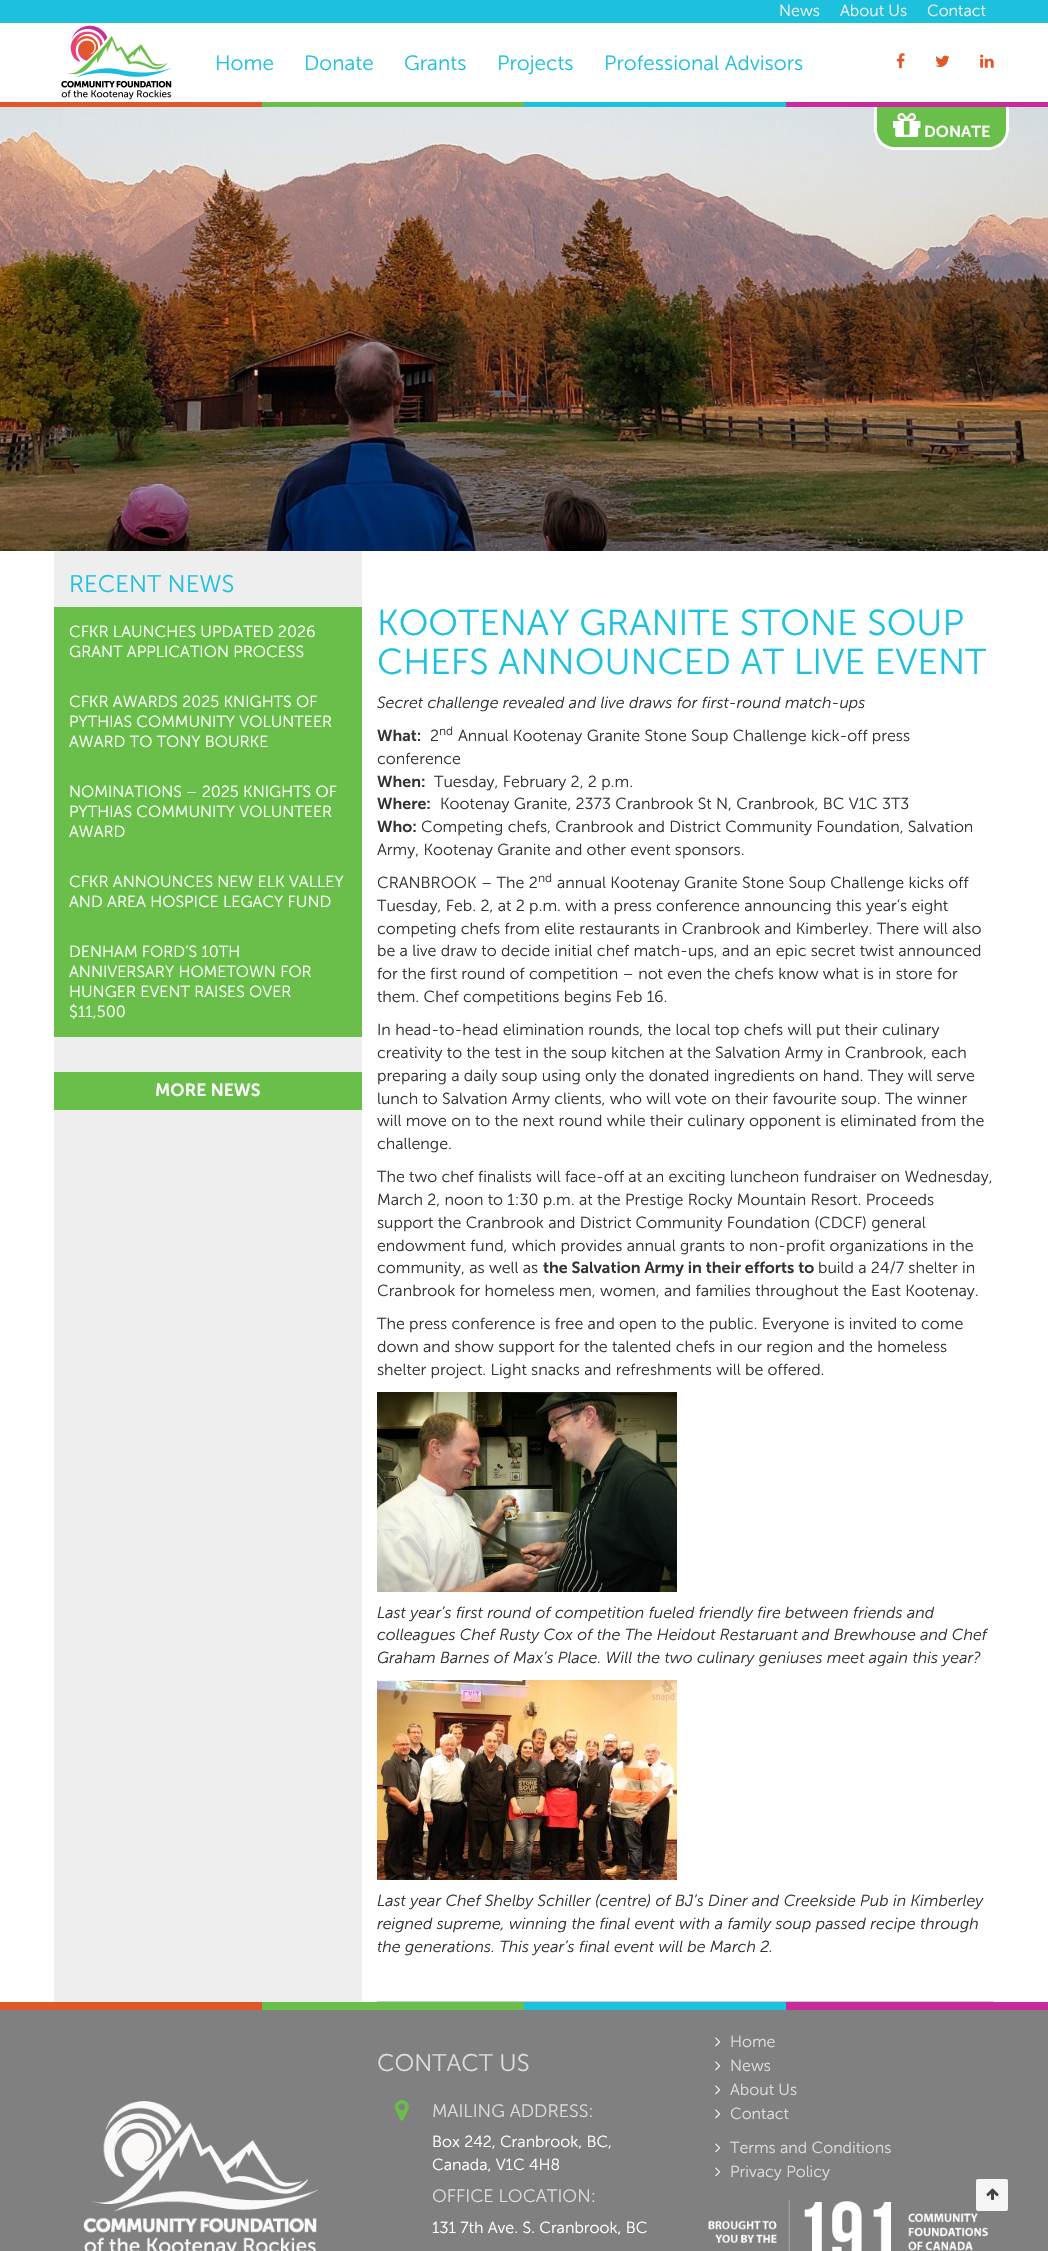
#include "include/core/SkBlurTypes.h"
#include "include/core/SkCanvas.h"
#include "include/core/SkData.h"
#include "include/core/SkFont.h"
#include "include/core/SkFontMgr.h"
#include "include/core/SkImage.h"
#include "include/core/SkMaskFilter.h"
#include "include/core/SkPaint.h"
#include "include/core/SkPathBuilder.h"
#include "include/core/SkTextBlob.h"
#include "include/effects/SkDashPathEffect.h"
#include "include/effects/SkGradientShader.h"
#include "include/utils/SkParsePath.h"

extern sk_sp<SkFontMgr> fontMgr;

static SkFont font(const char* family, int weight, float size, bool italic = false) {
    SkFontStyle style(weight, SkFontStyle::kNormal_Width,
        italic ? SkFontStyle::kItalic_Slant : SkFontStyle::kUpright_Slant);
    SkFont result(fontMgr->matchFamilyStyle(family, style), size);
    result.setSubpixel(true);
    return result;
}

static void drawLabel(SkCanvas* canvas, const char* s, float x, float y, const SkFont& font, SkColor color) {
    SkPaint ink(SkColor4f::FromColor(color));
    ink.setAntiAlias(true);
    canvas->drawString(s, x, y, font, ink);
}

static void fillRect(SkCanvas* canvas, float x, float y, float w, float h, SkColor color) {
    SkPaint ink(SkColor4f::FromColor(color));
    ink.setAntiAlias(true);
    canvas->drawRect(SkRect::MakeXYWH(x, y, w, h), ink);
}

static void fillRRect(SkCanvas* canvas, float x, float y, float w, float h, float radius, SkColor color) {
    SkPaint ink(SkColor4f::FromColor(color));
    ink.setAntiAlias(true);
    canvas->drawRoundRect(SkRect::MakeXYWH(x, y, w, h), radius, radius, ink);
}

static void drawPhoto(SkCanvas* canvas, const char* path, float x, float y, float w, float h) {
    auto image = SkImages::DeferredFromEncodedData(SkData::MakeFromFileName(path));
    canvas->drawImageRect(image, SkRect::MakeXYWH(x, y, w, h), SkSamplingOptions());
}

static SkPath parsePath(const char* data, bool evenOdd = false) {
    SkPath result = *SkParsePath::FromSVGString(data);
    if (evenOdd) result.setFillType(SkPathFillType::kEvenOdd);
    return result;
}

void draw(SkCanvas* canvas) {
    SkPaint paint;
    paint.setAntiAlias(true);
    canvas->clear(0xFFFFFFFF);
    fillRect(canvas, 0, 0, 1048, 23, 0xFF1DC1DD);
    SkFont font1 = font("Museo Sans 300", 300, 16);
    drawLabel(canvas, "News", 779, 16, font1, 0xFFEEEEEE);
    drawLabel(canvas, "About Us", 840, 16, font1, 0xFFEEEEEE);
    drawLabel(canvas, "Contact", 927, 16, font1, 0xFFEEEEEE);
    drawPhoto(canvas, "assets/img1.png", 61, 25, 111, 75);
    SkFont font2 = font("Museo Sans 300", 300, 20.75f);
    drawLabel(canvas, "Home", 215, 70, font2, 0xFF1DC1DD);
    drawLabel(canvas, "Donate", 304, 70, font2, 0xFF1DC1DD);
    drawLabel(canvas, "Grants", 404, 70, font2, 0xFF1DC1DD);
    drawLabel(canvas, "Projects", 497, 70, font2, 0xFF1DC1DD);
    drawLabel(canvas, "Professional Advisors", 604, 70, font2, 0xFF1DC1DD);
    drawPhoto(canvas, "assets/img2.png", 896, 53, 9, 16);
    drawPhoto(canvas, "assets/img3.png", 935, 55, 15, 12);
    drawPhoto(canvas, "assets/img4.png", 980, 54, 14, 14);
    fillRect(canvas, 0, 102, 262, 5, 0xFFE0582A);
    fillRect(canvas, 262, 102, 262, 5, 0xFF69BF4A);
    fillRect(canvas, 524, 102, 262, 5, 0xFF1DC1DD);
    fillRect(canvas, 786, 102, 262, 5, 0xFFCA2B9A);
    drawPhoto(canvas, "assets/img12.png", 0, 107, 1048, 444);
    paint.setColor(0xFF69BF4A);
    canvas->drawPath(parsePath("M874 107H1009V130C1009 141 1000 150 989 150H894C883 150 874 141 874 130Z"), paint);
    paint.setColor(0xFFFFFFFF);
    canvas->drawPath(parsePath("M874 107H1009V130C1009 141 1000 150 989 150H894C883 150 874 141 874 130ZM877 107H1006V130C1006 139 998 147 989 147H894C885 147 877 139 877 130Z", true), paint);
    drawPhoto(canvas, "assets/img5.png", 893, 113, 28, 24);
    SkFont font3 = font("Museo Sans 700", 600, 16);
    drawLabel(canvas, "DONATE", 924, 137, font3, 0xFFFFFFFF);
    fillRect(canvas, 54, 551, 308, 1451, 0xFFEEEEEE);
    SkFont font4 = font("Museo Sans 300", 300, 24);
    drawLabel(canvas, "RECENT NEWS", 69, 592, font4, 0xFF1DC1DD);
    fillRect(canvas, 54, 607, 308, 430, 0xFF69BF4A);
    drawLabel(canvas, "CFKR LAUNCHES UPDATED 2026", 69, 637, font1, 0xFFFFFFFF);
    drawLabel(canvas, "GRANT APPLICATION PROCESS", 69, 657, font1, 0xFFFFFFFF);
    drawLabel(canvas, "CFKR AWARDS 2025 KNIGHTS OF", 69, 707, font1, 0xFFFFFFFF);
    drawLabel(canvas, "PYTHIAS COMMUNITY VOLUNTEER", 69, 727, font1, 0xFFFFFFFF);
    drawLabel(canvas, "AWARD TO TONY BOURKE", 69, 747, font1, 0xFFFFFFFF);
    drawLabel(canvas, "NOMINATIONS – 2025 KNIGHTS OF", 69, 797, font1, 0xFFFFFFFF);
    drawLabel(canvas, "PYTHIAS COMMUNITY VOLUNTEER", 69, 817, font1, 0xFFFFFFFF);
    drawLabel(canvas, "AWARD", 69, 837, font1, 0xFFFFFFFF);
    drawLabel(canvas, "CFKR ANNOUNCES NEW ELK VALLEY", 69, 887, font1, 0xFFFFFFFF);
    drawLabel(canvas, "AND AREA HOSPICE LEGACY FUND", 69, 907, font1, 0xFFFFFFFF);
    drawLabel(canvas, "DENHAM FORD’S 10TH", 69, 957, font1, 0xFFFFFFFF);
    drawLabel(canvas, "ANNIVERSARY HOMETOWN FOR", 69, 977, font1, 0xFFFFFFFF);
    drawLabel(canvas, "HUNGER EVENT RAISES OVER", 69, 997, font1, 0xFFFFFFFF);
    drawLabel(canvas, "$11,500", 69, 1017, font1, 0xFFFFFFFF);
    fillRect(canvas, 54, 1072, 308, 38, 0xFF69BF4A);
    SkFont font5 = font("Museo Sans 700", 600, 17.5f);
    drawLabel(canvas, "MORE NEWS", 155, 1096, font5, 0xFFFFFFFF);
    fillRect(canvas, 377, 2001, 617, 1, 0xFFCCCCCC);
    SkFont font6 = font("Museo Sans 300", 300, 36);
    drawLabel(canvas, "KOOTENAY GRANITE STONE SOUP", 377, 635, font6, 0xFF1DC1DD);
    drawLabel(canvas, "CHEFS ANNOUNCED AT LIVE EVENT", 377, 674, font6, 0xFF1DC1DD);
    SkFont font7 = font("Museo Sans 300", 300, 16, true);
    drawLabel(canvas, "Secret challenge revealed and live draws for first-round match-ups", 377, 708, font7, 0xFF333333);
    drawLabel(canvas, "What:", 377, 741, font3, 0xFF333333);
    drawLabel(canvas, "2", 430, 741, font1, 0xFF333333);
    SkFont font8 = font("Museo Sans 300", 300, 12);
    drawLabel(canvas, "nd", 439, 735, font8, 0xFF333333);
    drawLabel(canvas, "Annual Kootenay Granite Stone Soup Challenge kick-off press", 458, 741, font1, 0xFF333333);
    drawLabel(canvas, "conference", 377, 764, font1, 0xFF333333);
    drawLabel(canvas, "When:", 377, 787, font3, 0xFF333333);
    drawLabel(canvas, "Tuesday, February 2, 2 p.m.", 434, 787, font1, 0xFF333333);
    drawLabel(canvas, "Where:", 377, 809, font3, 0xFF333333);
    drawLabel(canvas, "Kootenay Granite, 2373 Cranbrook St N, Cranbrook, BC V1C 3T3", 440, 809, font1, 0xFF333333);
    drawLabel(canvas, "Who:", 377, 832, font3, 0xFF333333);
    drawLabel(canvas, "Competing chefs, Cranbrook and District Community Foundation, Salvation", 421, 832, font1, 0xFF333333);
    drawLabel(canvas, "Army, Kootenay Granite and other event sponsors.", 377, 855, font1, 0xFF333333);
    drawLabel(canvas, "CRANBROOK – The 2", 377, 888, font1, 0xFF333333);
    drawLabel(canvas, "nd", 538, 882, font8, 0xFF333333);
    drawLabel(canvas, "annual Kootenay Granite Stone Soup Challenge kicks off", 557, 888, font1, 0xFF333333);
    drawLabel(canvas, "Tuesday, Feb. 2, at 2 p.m. with a press conference announcing this year’s eight", 377, 911, font1, 0xFF333333);
    drawLabel(canvas, "competing chefs from elite restaurants in Cranbrook and Kimberley. There will also", 377, 934, font1, 0xFF333333);
    drawLabel(canvas, "be a live draw to decide initial chef match-ups, and an epic secret twist announced", 377, 956, font1, 0xFF333333);
    drawLabel(canvas, "for the first round of competition – not even the chefs know what is in store for", 377, 979, font1, 0xFF333333);
    drawLabel(canvas, "them. Chef competitions begins Feb 16.", 377, 1002, font1, 0xFF333333);
    drawLabel(canvas, "In head-to-head elimination rounds, the local top chefs will put their culinary", 377, 1035, font1, 0xFF333333);
    drawLabel(canvas, "creativity to the test in the soup kitchen at the Salvation Army in Cranbrook, each", 377, 1058, font1, 0xFF333333);
    drawLabel(canvas, "preparing a daily soup using only the donated ingredients on hand. They will serve", 377, 1081, font1, 0xFF333333);
    drawLabel(canvas, "lunch to Salvation Army clients, who will vote on their favourite soup. The winner", 377, 1104, font1, 0xFF333333);
    drawLabel(canvas, "will move on to the next round while their culinary opponent is eliminated from the", 377, 1126, font1, 0xFF333333);
    drawLabel(canvas, "challenge.", 377, 1149, font1, 0xFF333333);
    drawLabel(canvas, "The two chef finalists will face-off at an exciting luncheon fundraiser on Wednesday,", 377, 1182, font1, 0xFF333333);
    drawLabel(canvas, "March 2, noon to 1:30 p.m. at the Prestige Rocky Mountain Resort. Proceeds", 377, 1205, font1, 0xFF333333);
    drawLabel(canvas, "support the Cranbrook and District Community Foundation (CDCF) general", 377, 1228, font1, 0xFF333333);
    drawLabel(canvas, "endowment fund, which provides annual grants to non-profit organizations in the", 377, 1251, font1, 0xFF333333);
    drawLabel(canvas, "community, as well as", 377, 1273, font1, 0xFF333333);
    drawLabel(canvas, "the Salvation Army in their efforts to", 543, 1273, font3, 0xFF333333);
    drawLabel(canvas, "build a 24/7 shelter in", 818, 1273, font1, 0xFF333333);
    drawLabel(canvas, "Cranbrook for homeless men, women, and families throughout the East Kootenay.", 377, 1296, font1, 0xFF333333);
    drawLabel(canvas, "The press conference is free and open to the public. Everyone is invited to come", 377, 1329, font1, 0xFF333333);
    drawLabel(canvas, "down and show support for the talented chefs in our region and the homeless", 377, 1352, font1, 0xFF333333);
    drawLabel(canvas, "shelter project. Light snacks and refreshments will be offered.", 377, 1375, font1, 0xFF333333);
    drawPhoto(canvas, "assets/img6.png", 377, 1392, 300, 200);
    drawLabel(canvas, "Last year’s first round of competition fueled friendly fire between friends and", 377, 1618, font7, 0xFF333333);
    drawLabel(canvas, "colleagues Chef Rusty Cox of the The Heidout Restaruant and Brewhouse and Chef", 377, 1640, font7, 0xFF333333);
    drawLabel(canvas, "Graham Barnes of Max’s Place. Will the two culinary geniuses meet again this year?", 377, 1663, font7, 0xFF333333);
    drawPhoto(canvas, "assets/img7.png", 377, 1680, 300, 200);
    drawLabel(canvas, "Last year Chef Shelby Schiller (centre) of BJ’s Diner and Creekside Pub in Kimberley", 377, 1906, font7, 0xFF333333);
    drawLabel(canvas, "reigned supreme, winning the final event with a family soup passed recipe through", 377, 1929, font7, 0xFF333333);
    drawLabel(canvas, "the generations. This year’s final event will be March 2.", 377, 1952, font7, 0xFF333333);
    fillRect(canvas, 0, 2002, 262, 8, 0xFFE0582A);
    fillRect(canvas, 262, 2002, 262, 8, 0xFF69BF4A);
    fillRect(canvas, 524, 2002, 262, 8, 0xFF1DC1DD);
    fillRect(canvas, 786, 2002, 262, 8, 0xFFCA2B9A);
    fillRect(canvas, 0, 2010, 1048, 241, 0xFF808080);
    drawPhoto(canvas, "assets/img8.png", 83, 2101, 235, 150);
    drawLabel(canvas, "CONTACT US", 377, 2071, font4, 0xFFDDDDDD);
    drawPhoto(canvas, "assets/img9.png", 395, 2100, 14, 21);
    SkFont font9 = font("Museo Sans 300", 300, 18);
    drawLabel(canvas, "MAILING ADDRESS:", 432, 2117, font9, 0xFFDDDDDD);
    drawLabel(canvas, "Box 242, Cranbrook, BC,", 432, 2147, font1, 0xFFFFFFFF);
    drawLabel(canvas, "Canada, V1C 4H8", 432, 2170, font1, 0xFFFFFFFF);
    drawLabel(canvas, "OFFICE LOCATION:", 432, 2202, font9, 0xFFDDDDDD);
    drawLabel(canvas, "131 7th Ave. S. Cranbrook, BC", 432, 2233, font1, 0xFFFFFFFF);
    drawPhoto(canvas, "assets/img10.png", 715, 2037, 6, 10);
    drawLabel(canvas, "Home", 730, 2047, font1, 0xFFDDDDDD);
    drawPhoto(canvas, "assets/img10.png", 715, 2061, 6, 10);
    drawLabel(canvas, "News", 730, 2071, font1, 0xFFDDDDDD);
    drawPhoto(canvas, "assets/img10.png", 715, 2085, 6, 10);
    drawLabel(canvas, "About Us", 730, 2095, font1, 0xFFDDDDDD);
    drawPhoto(canvas, "assets/img10.png", 715, 2109, 6, 10);
    drawLabel(canvas, "Contact", 730, 2119, font1, 0xFFDDDDDD);
    drawPhoto(canvas, "assets/img10.png", 715, 2143, 6, 10);
    drawLabel(canvas, "Terms and Conditions", 730, 2153, font1, 0xFFDDDDDD);
    drawPhoto(canvas, "assets/img10.png", 715, 2167, 6, 10);
    drawLabel(canvas, "Privacy Policy", 730, 2177, font1, 0xFFDDDDDD);
    drawPhoto(canvas, "assets/img11.png", 708, 2199, 281, 52);
    fillRRect(canvas, 976, 2179, 32, 32, 2, 0xFFF5F5F5);
    drawPhoto(canvas, "assets/img13.png", 986, 2188, 13, 12);
}
